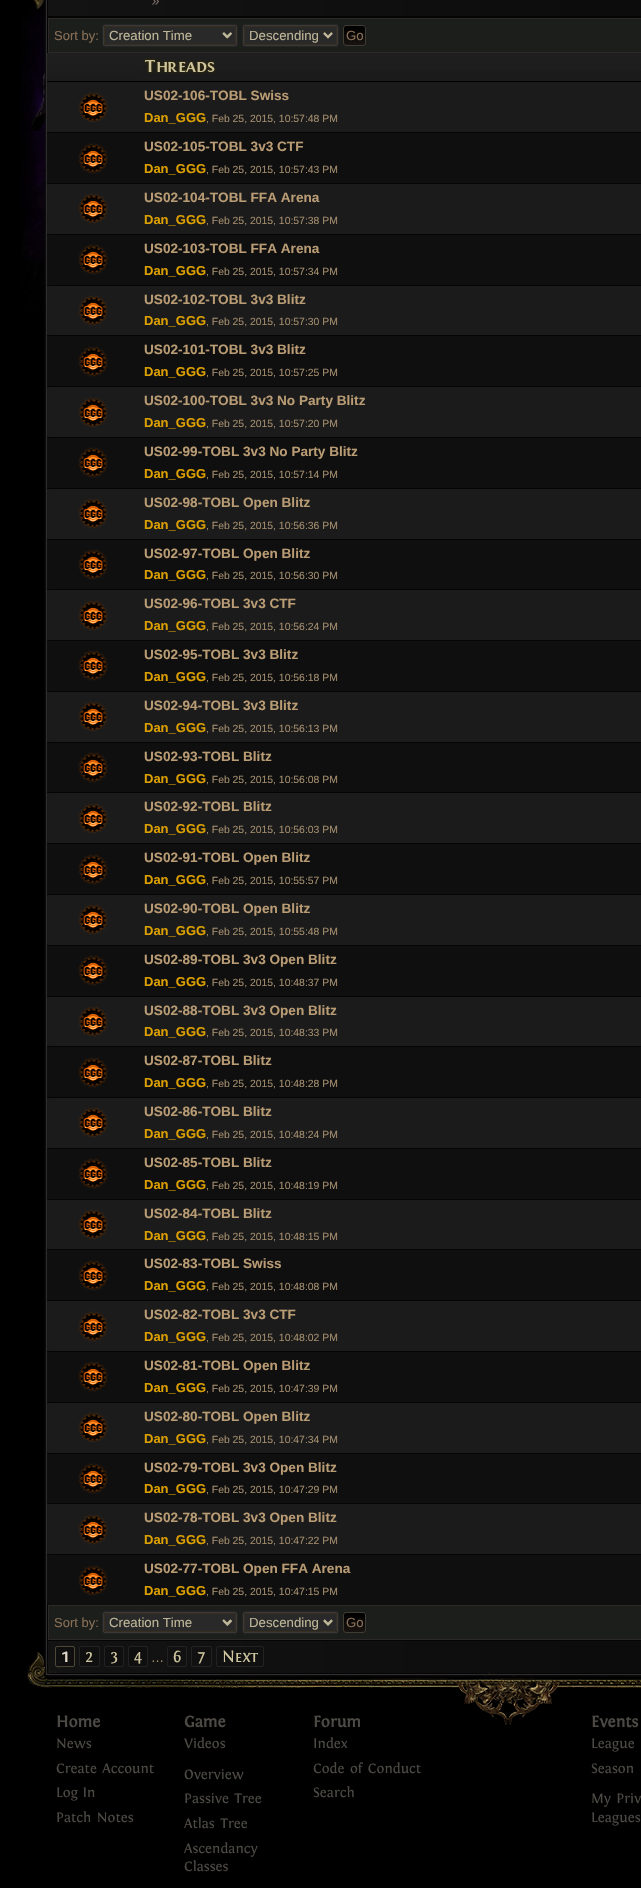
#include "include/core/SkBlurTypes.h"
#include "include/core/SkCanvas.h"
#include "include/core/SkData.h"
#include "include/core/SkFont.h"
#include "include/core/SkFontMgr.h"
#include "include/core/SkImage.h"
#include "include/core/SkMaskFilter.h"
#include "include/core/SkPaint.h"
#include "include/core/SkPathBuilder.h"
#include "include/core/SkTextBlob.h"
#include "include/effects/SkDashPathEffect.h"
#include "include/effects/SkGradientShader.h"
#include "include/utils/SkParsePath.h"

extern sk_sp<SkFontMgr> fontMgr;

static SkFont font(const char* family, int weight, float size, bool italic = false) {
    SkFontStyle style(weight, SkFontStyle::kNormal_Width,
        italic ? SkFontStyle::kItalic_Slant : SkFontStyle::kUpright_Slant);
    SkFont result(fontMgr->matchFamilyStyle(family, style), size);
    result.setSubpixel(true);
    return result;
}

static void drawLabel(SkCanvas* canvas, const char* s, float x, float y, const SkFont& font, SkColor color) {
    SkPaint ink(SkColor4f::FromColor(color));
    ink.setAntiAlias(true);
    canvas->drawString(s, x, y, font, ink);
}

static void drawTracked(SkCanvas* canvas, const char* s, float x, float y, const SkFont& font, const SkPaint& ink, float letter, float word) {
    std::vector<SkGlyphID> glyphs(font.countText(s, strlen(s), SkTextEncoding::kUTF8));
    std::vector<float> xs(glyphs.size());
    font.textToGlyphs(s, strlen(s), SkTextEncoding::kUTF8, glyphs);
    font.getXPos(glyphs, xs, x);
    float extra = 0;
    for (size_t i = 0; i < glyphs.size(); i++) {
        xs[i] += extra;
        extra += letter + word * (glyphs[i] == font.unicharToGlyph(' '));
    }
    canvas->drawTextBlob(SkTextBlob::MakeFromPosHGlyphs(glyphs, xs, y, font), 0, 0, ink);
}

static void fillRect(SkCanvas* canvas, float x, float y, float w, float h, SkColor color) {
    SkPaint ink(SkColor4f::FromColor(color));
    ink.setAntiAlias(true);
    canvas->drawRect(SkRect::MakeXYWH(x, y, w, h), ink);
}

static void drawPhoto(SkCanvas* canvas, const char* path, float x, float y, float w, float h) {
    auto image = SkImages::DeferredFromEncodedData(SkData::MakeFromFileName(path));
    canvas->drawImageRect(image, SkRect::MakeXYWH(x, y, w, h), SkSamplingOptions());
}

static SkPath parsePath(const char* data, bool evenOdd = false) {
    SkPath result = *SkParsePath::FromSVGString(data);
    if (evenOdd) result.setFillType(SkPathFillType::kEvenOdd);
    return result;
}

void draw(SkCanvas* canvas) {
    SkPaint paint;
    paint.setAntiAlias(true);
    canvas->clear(0xFF000000);
    drawPhoto(canvas, "assets/img1.png", 21, 0, 25, 311);
    paint.setColor(0xE0000000);
    paint.setMaskFilter(SkMaskFilter::MakeBlur(kNormal_SkBlurStyle, 2));
    canvas->drawRect(SkRect::MakeXYWH(44, -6, 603, 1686), paint);
    paint.setMaskFilter(nullptr);
    drawPhoto(canvas, "assets/img2.png", 33, 0, 11, 10);
    paint.setColor(0xFF1B1B1B);
    paint.setMaskFilter(SkMaskFilter::MakeBlur(kNormal_SkBlurStyle, 1.5f));
    canvas->drawRoundRect(SkRect::MakeXYWH(46, -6, 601, 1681), 1, 1, paint);
    paint.setMaskFilter(nullptr);
    paint.setColor(0x80191919);
    canvas->drawRoundRect(SkRect::MakeXYWH(46.5f, -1.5f, 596, 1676), 0.5f, 0.5f, paint);
    paint.setStroke(true);
    paint.setStrokeWidth(1);
    paint.setColor(0xFF302E2E);
    canvas->drawRoundRect(SkRect::MakeXYWH(46.5f, -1.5f, 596, 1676), 0.5f, 0.5f, paint);
    paint.setStroke(false);
    {
        const SkColor colors[] = {0xFF0C0C0C, 0xFF0C0C0C, 0xFF131313};
        const float stops[] = {0, 0.4f, 1};
        const SkPoint ends[] = {{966, 1.5f}, {48, 1.5f}};
        paint.setShader(SkGradientShader::MakeLinear(ends, colors, stops, 3, SkTileMode::kClamp));
        paint.setAlpha(255);
    }
    canvas->drawRect(SkRect::MakeXYWH(48, 0, 593, 16), paint);
    fillRect(canvas, 47, 0, 1, 16, 0xFF050505);
    SkFont font1 = font("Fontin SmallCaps", 400, 14.25f);
    drawLabel(canvas, "»", 151, 5, font1, 0xFF7E6E6E);
    fillRect(canvas, 47, 16, 594, 2, 0xFF050505);
    fillRect(canvas, 47, 17, 1, 36, 0xFF050505);
    paint.setShader(nullptr);
    paint.setColor(0xFF1C1E1B);
    canvas->drawRect(SkRect::MakeXYWH(48.5f, 18.5f, 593, 34), paint);
    paint.setStroke(true);
    paint.setColor(0xFF2D2929);
    canvas->drawRect(SkRect::MakeXYWH(48.5f, 18.5f, 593, 34), paint);
    SkFont font2 = font("Liberation Sans", 400, 13);
    drawLabel(canvas, "Sort by:", 54, 40, font2, 0xFF886F56);
    fillRect(canvas, 105, 27, 130, 17, 0xFF292929);
    drawPhoto(canvas, "assets/img3.png", 102, 24, 136, 23);
    paint.setStrokeWidth(2);
    paint.setColor(0xFFBEB698);
    canvas->drawPath(parsePath("M223.5 33L227.5 37L231.5 33"), paint);
    SkFont font3 = font("Liberation Sans", 400, 13.25f);
    drawLabel(canvas, "Creation Time", 109, 40, font3, 0xFFBEB698);
    fillRect(canvas, 245, 27, 91, 17, 0xFF292929);
    drawPhoto(canvas, "assets/img4.png", 242, 24, 97, 23);
    canvas->drawPath(parsePath("M324 33L328 37L332 33"), paint);
    drawLabel(canvas, "Descending", 249, 40, font3, 0xFFBEB698);
    drawPhoto(canvas, "assets/img5.png", 343, 26, 23, 20);
    paint.setStrokeWidth(1);
    paint.setColor(0xFF3F3C33);
    canvas->drawRoundRect(SkRect::MakeXYWH(343.5f, 25.5f, 22, 20), 2.5f, 2.5f, paint);
    drawLabel(canvas, "Go", 346, 40, font3, 0xFF886F56);
    paint.setStroke(false);
    {
        const SkColor colors[] = {0xFF1E1F1E, 0xFF1B1B1B};
        const float stops[] = {0, 1};
        const SkPoint ends[] = {{93, 53}, {93, 81}};
        paint.setShader(SkGradientShader::MakeLinear(ends, colors, stops, 2, SkTileMode::kClamp));
        paint.setAlpha(255);
    }
    canvas->drawRect(SkRect::MakeXYWH(47, 53, 92, 28), paint);
    {
        const SkColor colors[] = {0xFF1E1F1E, 0xFF1B1B1B};
        const float stops[] = {0, 1};
        const SkPoint ends[] = {{392, 53}, {392, 81}};
        paint.setShader(SkGradientShader::MakeLinear(ends, colors, stops, 2, SkTileMode::kClamp));
        paint.setAlpha(255);
    }
    canvas->drawRect(SkRect::MakeXYWH(139, 53, 502, 18), paint);
    fillRect(canvas, 47, 81, 594, 1, 0xFF000000);
    drawPhoto(canvas, "assets/img6.png", 144, 58, 72, 16);
    fillRect(canvas, 47, 82, 1, 50, 0xFF1A1B18);
    drawPhoto(canvas, "assets/img7.png", 78, 92, 30, 31);
    SkFont font4 = font("Liberation Sans", 700, 13.6f);
    drawLabel(canvas, "US02-106-TOBL Swiss", 144, 100, font4, 0xFFB99C74);
    SkFont font5 = font("Liberation Sans", 700, 13);
    drawLabel(canvas, "Dan_GGG", 144, 122, font5, 0xFFDB9F00);
    SkFont font6 = font("Liberation Sans", 400, 10.4f);
    drawLabel(canvas, ", Feb 25, 2015, 10:57:48 PM", 206, 122, font6, 0xFFA38D6D);
    fillRect(canvas, 47, 133, 594, 50, 0xFF0F0F0F);
    drawPhoto(canvas, "assets/img8.png", 78, 143, 30, 31);
    fillRect(canvas, 47, 132, 594, 1, 0xFF050505);
    drawLabel(canvas, "US02-105-TOBL 3v3 CTF", 144, 151, font4, 0xFFB99C74);
    drawLabel(canvas, "Dan_GGG", 144, 173, font5, 0xFFDB9F00);
    drawLabel(canvas, ", Feb 25, 2015, 10:57:43 PM", 206, 173, font6, 0xFFA38D6D);
    fillRect(canvas, 47, 184, 1, 50, 0xFF1A1B18);
    drawPhoto(canvas, "assets/img7.png", 78, 193, 30, 31);
    fillRect(canvas, 47, 183, 594, 1, 0xFF050505);
    drawLabel(canvas, "US02-104-TOBL FFA Arena", 144, 202, font4, 0xFFB99C74);
    drawLabel(canvas, "Dan_GGG", 144, 224, font5, 0xFFDB9F00);
    drawLabel(canvas, ", Feb 25, 2015, 10:57:38 PM", 206, 224, font6, 0xFFA38D6D);
    fillRect(canvas, 47, 235, 594, 50, 0xFF0F0F0F);
    drawPhoto(canvas, "assets/img8.png", 78, 244, 30, 31);
    fillRect(canvas, 47, 234, 594, 1, 0xFF050505);
    drawLabel(canvas, "US02-103-TOBL FFA Arena", 144, 253, font4, 0xFFB99C74);
    drawLabel(canvas, "Dan_GGG", 144, 275, font5, 0xFFDB9F00);
    drawLabel(canvas, ", Feb 25, 2015, 10:57:34 PM", 206, 275, font6, 0xFFA38D6D);
    fillRect(canvas, 47, 286, 1, 49, 0xFF1A1B18);
    drawPhoto(canvas, "assets/img7.png", 78, 295, 30, 31);
    fillRect(canvas, 47, 285, 594, 1, 0xFF050505);
    drawLabel(canvas, "US02-102-TOBL 3v3 Blitz", 144, 304, font4, 0xFFB99C74);
    drawLabel(canvas, "Dan_GGG", 144, 325, font5, 0xFFDB9F00);
    drawLabel(canvas, ", Feb 25, 2015, 10:57:30 PM", 206, 325, font6, 0xFFA38D6D);
    fillRect(canvas, 47, 336, 594, 50, 0xFF0F0F0F);
    drawPhoto(canvas, "assets/img8.png", 78, 346, 30, 31);
    fillRect(canvas, 47, 335, 594, 1, 0xFF050505);
    drawLabel(canvas, "US02-101-TOBL 3v3 Blitz", 144, 354, font4, 0xFFB99C74);
    drawLabel(canvas, "Dan_GGG", 144, 376, font5, 0xFFDB9F00);
    drawLabel(canvas, ", Feb 25, 2015, 10:57:25 PM", 206, 376, font6, 0xFFA38D6D);
    fillRect(canvas, 47, 387, 1, 50, 0xFF1A1B18);
    drawPhoto(canvas, "assets/img7.png", 78, 397, 30, 31);
    fillRect(canvas, 47, 386, 594, 1, 0xFF050505);
    drawLabel(canvas, "US02-100-TOBL 3v3 No Party Blitz", 144, 405, font4, 0xFFB99C74);
    drawLabel(canvas, "Dan_GGG", 144, 427, font5, 0xFFDB9F00);
    drawLabel(canvas, ", Feb 25, 2015, 10:57:20 PM", 206, 427, font6, 0xFFA38D6D);
    fillRect(canvas, 47, 438, 594, 50, 0xFF0F0F0F);
    drawPhoto(canvas, "assets/img8.png", 78, 447, 30, 31);
    fillRect(canvas, 47, 437, 594, 1, 0xFF050505);
    drawLabel(canvas, "US02-99-TOBL 3v3 No Party Blitz", 144, 456, font4, 0xFFB99C74);
    drawLabel(canvas, "Dan_GGG", 144, 478, font5, 0xFFDB9F00);
    drawLabel(canvas, ", Feb 25, 2015, 10:57:14 PM", 206, 478, font6, 0xFFA38D6D);
    fillRect(canvas, 47, 489, 1, 50, 0xFF1A1B18);
    drawPhoto(canvas, "assets/img7.png", 78, 498, 30, 31);
    fillRect(canvas, 47, 488, 594, 1, 0xFF050505);
    drawLabel(canvas, "US02-98-TOBL Open Blitz", 144, 507, font4, 0xFFB99C74);
    drawLabel(canvas, "Dan_GGG", 144, 529, font5, 0xFFDB9F00);
    drawLabel(canvas, ", Feb 25, 2015, 10:56:36 PM", 206, 529, font6, 0xFFA38D6D);
    fillRect(canvas, 47, 540, 594, 49, 0xFF0F0F0F);
    drawPhoto(canvas, "assets/img8.png", 78, 549, 30, 31);
    fillRect(canvas, 47, 539, 594, 1, 0xFF050505);
    drawLabel(canvas, "US02-97-TOBL Open Blitz", 144, 558, font4, 0xFFB99C74);
    drawLabel(canvas, "Dan_GGG", 144, 579, font5, 0xFFDB9F00);
    drawLabel(canvas, ", Feb 25, 2015, 10:56:30 PM", 206, 579, font6, 0xFFA38D6D);
    fillRect(canvas, 47, 590, 1, 50, 0xFF1A1B18);
    drawPhoto(canvas, "assets/img7.png", 78, 600, 30, 31);
    fillRect(canvas, 47, 589, 594, 1, 0xFF050505);
    drawLabel(canvas, "US02-96-TOBL 3v3 CTF", 144, 608, font4, 0xFFB99C74);
    drawLabel(canvas, "Dan_GGG", 144, 630, font5, 0xFFDB9F00);
    drawLabel(canvas, ", Feb 25, 2015, 10:56:24 PM", 206, 630, font6, 0xFFA38D6D);
    fillRect(canvas, 47, 641, 594, 50, 0xFF0F0F0F);
    drawPhoto(canvas, "assets/img8.png", 78, 650, 30, 31);
    fillRect(canvas, 47, 640, 594, 1, 0xFF050505);
    drawLabel(canvas, "US02-95-TOBL 3v3 Blitz", 144, 659, font4, 0xFFB99C74);
    drawLabel(canvas, "Dan_GGG", 144, 681, font5, 0xFFDB9F00);
    drawLabel(canvas, ", Feb 25, 2015, 10:56:18 PM", 206, 681, font6, 0xFFA38D6D);
    fillRect(canvas, 47, 692, 1, 50, 0xFF1A1B18);
    drawPhoto(canvas, "assets/img7.png", 78, 701, 30, 31);
    fillRect(canvas, 47, 691, 594, 1, 0xFF050505);
    drawLabel(canvas, "US02-94-TOBL 3v3 Blitz", 144, 710, font4, 0xFFB99C74);
    drawLabel(canvas, "Dan_GGG", 144, 732, font5, 0xFFDB9F00);
    drawLabel(canvas, ", Feb 25, 2015, 10:56:13 PM", 206, 732, font6, 0xFFA38D6D);
    fillRect(canvas, 47, 743, 594, 49, 0xFF0F0F0F);
    drawPhoto(canvas, "assets/img8.png", 78, 752, 30, 31);
    fillRect(canvas, 47, 742, 594, 1, 0xFF050505);
    drawLabel(canvas, "US02-93-TOBL Blitz", 144, 761, font4, 0xFFB99C74);
    drawLabel(canvas, "Dan_GGG", 144, 783, font5, 0xFFDB9F00);
    drawLabel(canvas, ", Feb 25, 2015, 10:56:08 PM", 206, 783, font6, 0xFFA38D6D);
    fillRect(canvas, 47, 793, 1, 50, 0xFF1A1B18);
    drawPhoto(canvas, "assets/img7.png", 78, 803, 30, 31);
    fillRect(canvas, 47, 792, 594, 1, 0xFF050505);
    drawLabel(canvas, "US02-92-TOBL Blitz", 144, 811, font4, 0xFFB99C74);
    drawLabel(canvas, "Dan_GGG", 144, 833, font5, 0xFFDB9F00);
    drawLabel(canvas, ", Feb 25, 2015, 10:56:03 PM", 206, 833, font6, 0xFFA38D6D);
    fillRect(canvas, 47, 844, 594, 50, 0xFF0F0F0F);
    drawPhoto(canvas, "assets/img8.png", 78, 854, 30, 31);
    fillRect(canvas, 47, 843, 594, 1, 0xFF050505);
    drawLabel(canvas, "US02-91-TOBL Open Blitz", 144, 862, font4, 0xFFB99C74);
    drawLabel(canvas, "Dan_GGG", 144, 884, font5, 0xFFDB9F00);
    drawLabel(canvas, ", Feb 25, 2015, 10:55:57 PM", 206, 884, font6, 0xFFA38D6D);
    fillRect(canvas, 47, 895, 1, 50, 0xFF1A1B18);
    drawPhoto(canvas, "assets/img7.png", 78, 904, 30, 31);
    fillRect(canvas, 47, 894, 594, 1, 0xFF050505);
    drawLabel(canvas, "US02-90-TOBL Open Blitz", 144, 913, font4, 0xFFB99C74);
    drawLabel(canvas, "Dan_GGG", 144, 935, font5, 0xFFDB9F00);
    drawLabel(canvas, ", Feb 25, 2015, 10:55:48 PM", 206, 935, font6, 0xFFA38D6D);
    fillRect(canvas, 47, 946, 594, 50, 0xFF0F0F0F);
    drawPhoto(canvas, "assets/img8.png", 78, 955, 30, 31);
    fillRect(canvas, 47, 945, 594, 1, 0xFF050505);
    drawLabel(canvas, "US02-89-TOBL 3v3 Open Blitz", 144, 964, font4, 0xFFB99C74);
    drawLabel(canvas, "Dan_GGG", 144, 986, font5, 0xFFDB9F00);
    drawLabel(canvas, ", Feb 25, 2015, 10:48:37 PM", 206, 986, font6, 0xFFA38D6D);
    fillRect(canvas, 47, 997, 1, 49, 0xFF1A1B18);
    drawPhoto(canvas, "assets/img7.png", 78, 1006, 30, 31);
    fillRect(canvas, 47, 996, 594, 1, 0xFF050505);
    drawLabel(canvas, "US02-88-TOBL 3v3 Open Blitz", 144, 1015, font4, 0xFFB99C74);
    drawLabel(canvas, "Dan_GGG", 144, 1036, font5, 0xFFDB9F00);
    drawLabel(canvas, ", Feb 25, 2015, 10:48:33 PM", 206, 1036, font6, 0xFFA38D6D);
    fillRect(canvas, 47, 1047, 594, 50, 0xFF0F0F0F);
    drawPhoto(canvas, "assets/img8.png", 78, 1057, 30, 31);
    fillRect(canvas, 47, 1046, 594, 1, 0xFF050505);
    drawLabel(canvas, "US02-87-TOBL Blitz", 144, 1065, font4, 0xFFB99C74);
    drawLabel(canvas, "Dan_GGG", 144, 1087, font5, 0xFFDB9F00);
    drawLabel(canvas, ", Feb 25, 2015, 10:48:28 PM", 206, 1087, font6, 0xFFA38D6D);
    fillRect(canvas, 47, 1098, 1, 50, 0xFF1A1B18);
    drawPhoto(canvas, "assets/img7.png", 78, 1107, 30, 31);
    fillRect(canvas, 47, 1097, 594, 1, 0xFF050505);
    drawLabel(canvas, "US02-86-TOBL Blitz", 144, 1116, font4, 0xFFB99C74);
    drawLabel(canvas, "Dan_GGG", 144, 1138, font5, 0xFFDB9F00);
    drawLabel(canvas, ", Feb 25, 2015, 10:48:24 PM", 206, 1138, font6, 0xFFA38D6D);
    fillRect(canvas, 47, 1149, 594, 50, 0xFF0F0F0F);
    drawPhoto(canvas, "assets/img8.png", 78, 1158, 30, 31);
    fillRect(canvas, 47, 1148, 594, 1, 0xFF050505);
    drawLabel(canvas, "US02-85-TOBL Blitz", 144, 1167, font4, 0xFFB99C74);
    drawLabel(canvas, "Dan_GGG", 144, 1189, font5, 0xFFDB9F00);
    drawLabel(canvas, ", Feb 25, 2015, 10:48:19 PM", 206, 1189, font6, 0xFFA38D6D);
    fillRect(canvas, 47, 1200, 1, 49, 0xFF1A1B18);
    drawPhoto(canvas, "assets/img7.png", 78, 1209, 30, 31);
    fillRect(canvas, 47, 1199, 594, 1, 0xFF050505);
    drawLabel(canvas, "US02-84-TOBL Blitz", 144, 1218, font4, 0xFFB99C74);
    drawLabel(canvas, "Dan_GGG", 144, 1240, font5, 0xFFDB9F00);
    drawLabel(canvas, ", Feb 25, 2015, 10:48:15 PM", 206, 1240, font6, 0xFFA38D6D);
    fillRect(canvas, 47, 1250, 594, 50, 0xFF0F0F0F);
    drawPhoto(canvas, "assets/img8.png", 78, 1260, 30, 31);
    fillRect(canvas, 47, 1249, 594, 1, 0xFF050505);
    drawLabel(canvas, "US02-83-TOBL Swiss", 144, 1268, font4, 0xFFB99C74);
    drawLabel(canvas, "Dan_GGG", 144, 1290, font5, 0xFFDB9F00);
    drawLabel(canvas, ", Feb 25, 2015, 10:48:08 PM", 206, 1290, font6, 0xFFA38D6D);
    fillRect(canvas, 47, 1301, 1, 50, 0xFF1A1B18);
    drawPhoto(canvas, "assets/img7.png", 78, 1311, 30, 31);
    fillRect(canvas, 47, 1300, 594, 1, 0xFF050505);
    drawLabel(canvas, "US02-82-TOBL 3v3 CTF", 144, 1319, font4, 0xFFB99C74);
    drawLabel(canvas, "Dan_GGG", 144, 1341, font5, 0xFFDB9F00);
    drawLabel(canvas, ", Feb 25, 2015, 10:48:02 PM", 206, 1341, font6, 0xFFA38D6D);
    fillRect(canvas, 47, 1352, 594, 50, 0xFF0F0F0F);
    drawPhoto(canvas, "assets/img8.png", 78, 1361, 30, 31);
    fillRect(canvas, 47, 1351, 594, 1, 0xFF050505);
    drawLabel(canvas, "US02-81-TOBL Open Blitz", 144, 1370, font4, 0xFFB99C74);
    drawLabel(canvas, "Dan_GGG", 144, 1392, font5, 0xFFDB9F00);
    drawLabel(canvas, ", Feb 25, 2015, 10:47:39 PM", 206, 1392, font6, 0xFFA38D6D);
    fillRect(canvas, 47, 1403, 1, 50, 0xFF1A1B18);
    drawPhoto(canvas, "assets/img7.png", 78, 1412, 30, 31);
    fillRect(canvas, 47, 1402, 594, 1, 0xFF050505);
    drawLabel(canvas, "US02-80-TOBL Open Blitz", 144, 1421, font4, 0xFFB99C74);
    drawLabel(canvas, "Dan_GGG", 144, 1443, font5, 0xFFDB9F00);
    drawLabel(canvas, ", Feb 25, 2015, 10:47:34 PM", 206, 1443, font6, 0xFFA38D6D);
    fillRect(canvas, 47, 1454, 594, 49, 0xFF0F0F0F);
    drawPhoto(canvas, "assets/img8.png", 78, 1463, 30, 31);
    fillRect(canvas, 47, 1453, 594, 1, 0xFF050505);
    drawLabel(canvas, "US02-79-TOBL 3v3 Open Blitz", 144, 1472, font4, 0xFFB99C74);
    drawLabel(canvas, "Dan_GGG", 144, 1493, font5, 0xFFDB9F00);
    drawLabel(canvas, ", Feb 25, 2015, 10:47:29 PM", 206, 1493, font6, 0xFFA38D6D);
    fillRect(canvas, 47, 1504, 1, 50, 0xFF1A1B18);
    drawPhoto(canvas, "assets/img7.png", 78, 1514, 30, 31);
    fillRect(canvas, 47, 1503, 594, 1, 0xFF050505);
    drawLabel(canvas, "US02-78-TOBL 3v3 Open Blitz", 144, 1522, font4, 0xFFB99C74);
    drawLabel(canvas, "Dan_GGG", 144, 1544, font5, 0xFFDB9F00);
    drawLabel(canvas, ", Feb 25, 2015, 10:47:22 PM", 206, 1544, font6, 0xFFA38D6D);
    fillRect(canvas, 47, 1555, 594, 50, 0xFF0F0F0F);
    drawPhoto(canvas, "assets/img8.png", 78, 1565, 30, 31);
    fillRect(canvas, 47, 1554, 594, 1, 0xFF050505);
    drawLabel(canvas, "US02-77-TOBL Open FFA Arena", 144, 1573, font4, 0xFFB99C74);
    drawLabel(canvas, "Dan_GGG", 144, 1595, font5, 0xFFDB9F00);
    drawLabel(canvas, ", Feb 25, 2015, 10:47:15 PM", 206, 1595, font6, 0xFFA38D6D);
    fillRect(canvas, 47, 1640, 594, 1, 0xFF050505);
    fillRect(canvas, 47, 1605, 1, 68, 0xFF050505);
    paint.setShader(nullptr);
    paint.setColor(0xFF1C1E1B);
    canvas->drawRect(SkRect::MakeXYWH(48.5f, 1605.5f, 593, 34), paint);
    paint.setStroke(true);
    paint.setColor(0xFF2D2929);
    canvas->drawRect(SkRect::MakeXYWH(48.5f, 1605.5f, 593, 34), paint);
    drawLabel(canvas, "Sort by:", 54, 1627, font2, 0xFF886F56);
    fillRect(canvas, 105, 1614, 130, 17, 0xFF292929);
    drawPhoto(canvas, "assets/img3.png", 102, 1611, 136, 23);
    paint.setStrokeWidth(2);
    paint.setColor(0xFFBEB698);
    canvas->drawPath(parsePath("M223.5 1620.5L227.5 1624.5L231.5 1620.5"), paint);
    drawLabel(canvas, "Creation Time", 109, 1627, font3, 0xFFBEB698);
    fillRect(canvas, 245, 1614, 91, 17, 0xFF292929);
    drawPhoto(canvas, "assets/img4.png", 242, 1611, 97, 23);
    canvas->drawPath(parsePath("M324 1620.5L328 1624.5L332 1620.5"), paint);
    drawLabel(canvas, "Descending", 249, 1627, font3, 0xFFBEB698);
    drawPhoto(canvas, "assets/img5.png", 343, 1613, 23, 20);
    paint.setStrokeWidth(1);
    paint.setColor(0xFF3F3C33);
    canvas->drawRoundRect(SkRect::MakeXYWH(343.5f, 1612.5f, 22, 20), 2.5f, 2.5f, paint);
    drawLabel(canvas, "Go", 346, 1627, font3, 0xFF886F56);
    paint.setStroke(false);
    {
        const SkColor colors[] = {0xFF0C0C0C, 0xFF0C0C0C, 0xFF131313};
        const float stops[] = {0, 0.4f, 1};
        const SkPoint ends[] = {{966, 1657}, {48, 1657}};
        paint.setShader(SkGradientShader::MakeLinear(ends, colors, stops, 3, SkTileMode::kClamp));
        paint.setAlpha(255);
    }
    canvas->drawRect(SkRect::MakeXYWH(48, 1641, 593, 32), paint);
    fillRect(canvas, 48, 1673, 593, 1, 0xFF050505);
    paint.setShader(nullptr);
    paint.setColor(0xFF0F0F0F);
    canvas->drawRoundRect(SkRect::MakeXYWH(55.5f, 1646.5f, 19, 20), 1.5f, 1.5f, paint);
    paint.setStroke(true);
    paint.setColor(0xFF4D4737);
    canvas->drawRoundRect(SkRect::MakeXYWH(55.5f, 1646.5f, 19, 20), 1.5f, 1.5f, paint);
    SkFont font7 = font("Fontin SmallCaps", 700, 17);
    drawLabel(canvas, "1", 61, 1662, font7, 0xFFE0D7C7);
    paint.setStroke(false);
    paint.setColor(0xFF0F0F0F);
    canvas->drawRoundRect(SkRect::MakeXYWH(79.5f, 1646.5f, 20, 20), 1.5f, 1.5f, paint);
    paint.setStroke(true);
    paint.setColor(0xFF222222);
    canvas->drawRoundRect(SkRect::MakeXYWH(79.5f, 1646.5f, 20, 20), 1.5f, 1.5f, paint);
    SkFont font8 = font("Fontin SmallCaps", 400, 17);
    drawLabel(canvas, "2", 85, 1662, font8, 0xFFCEC59F);
    paint.setStroke(false);
    paint.setColor(0xFF0F0F0F);
    canvas->drawRoundRect(SkRect::MakeXYWH(104.5f, 1646.5f, 19, 20), 1.5f, 1.5f, paint);
    paint.setStroke(true);
    paint.setColor(0xFF222222);
    canvas->drawRoundRect(SkRect::MakeXYWH(104.5f, 1646.5f, 19, 20), 1.5f, 1.5f, paint);
    drawLabel(canvas, "3", 110, 1662, font8, 0xFFCEC59F);
    paint.setStroke(false);
    paint.setColor(0xFF0F0F0F);
    canvas->drawRoundRect(SkRect::MakeXYWH(128.5f, 1646.5f, 19, 20), 1.5f, 1.5f, paint);
    paint.setStroke(true);
    paint.setColor(0xFF222222);
    canvas->drawRoundRect(SkRect::MakeXYWH(128.5f, 1646.5f, 19, 20), 1.5f, 1.5f, paint);
    drawLabel(canvas, "4", 134, 1662, font8, 0xFFCEC59F);
    drawLabel(canvas, "…", 151, 1662, font2, 0xFFA38D6D);
    canvas->drawRoundRect(SkRect::MakeXYWH(167.5f, 1646.5f, 19, 20), 1.5f, 1.5f, paint);
    drawLabel(canvas, "6", 173, 1662, font8, 0xFFCEC59F);
    canvas->drawRoundRect(SkRect::MakeXYWH(191.5f, 1646.5f, 20, 20), 1.5f, 1.5f, paint);
    drawLabel(canvas, "7", 197, 1662, font8, 0xFFCEC59F);
    canvas->drawRoundRect(SkRect::MakeXYWH(216.5f, 1646.5f, 47, 20), 1.5f, 1.5f, paint);
    drawLabel(canvas, "Next", 222, 1662, font8, 0xFFCEC59F);
    drawPhoto(canvas, "assets/img9.png", 27, 1652, 614, 73);
    SkFont font9 = font("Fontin", 700, 16.5f);
    drawLabel(canvas, "Home", 56, 1727, font9, 0xFF4D4A45);
    SkFont font10 = font("Fontin", 400, 14.25f);
    drawLabel(canvas, "News", 56, 1748, font10, 0xFF4D4A45);
    paint.setStroke(false);
    paint.setColor(0xFF4D4A45);
    drawTracked(canvas, "Create Account", 56, 1773, font10, paint, 0, 1);
    drawLabel(canvas, "Log In", 56, 1797, font10, 0xFF4D4A45);
    drawTracked(canvas, "Patch Notes", 56, 1822, font10, paint, 0, 1);
    drawLabel(canvas, "Game", 184, 1727, font9, 0xFF4D4A45);
    drawLabel(canvas, "Videos", 184, 1748, font10, 0xFF4D4A45);
    drawLabel(canvas, "Overview", 184, 1779, font10, 0xFF4D4A45);
    drawTracked(canvas, "Passive Tree", 184, 1803, font10, paint, 0, 1);
    drawTracked(canvas, "Atlas Tree", 184, 1828, font10, paint, 0, 1);
    drawLabel(canvas, "Ascendancy", 184, 1853, font10, 0xFF4D4A45);
    drawLabel(canvas, "Classes", 184, 1871, font10, 0xFF4D4A45);
    drawLabel(canvas, "Forum", 313, 1727, font9, 0xFF4D4A45);
    drawLabel(canvas, "Index", 313, 1748, font10, 0xFF4D4A45);
    drawTracked(canvas, "Code of Conduct", 313, 1773, font10, paint, 0, 1);
    drawLabel(canvas, "Search", 313, 1797, font10, 0xFF4D4A45);
    drawLabel(canvas, "Events", 591, 1727, font9, 0xFF4D4A45);
    drawTracked(canvas, "League", 591, 1748, font10, paint, 0, 1);
    drawTracked(canvas, "Season", 591, 1773, font10, paint, 0, 1);
    drawTracked(canvas, "My Priv", 591, 1803, font10, paint, 0, 1);
    drawLabel(canvas, "Leagues", 591, 1822, font10, 0xFF4D4A45);
}
